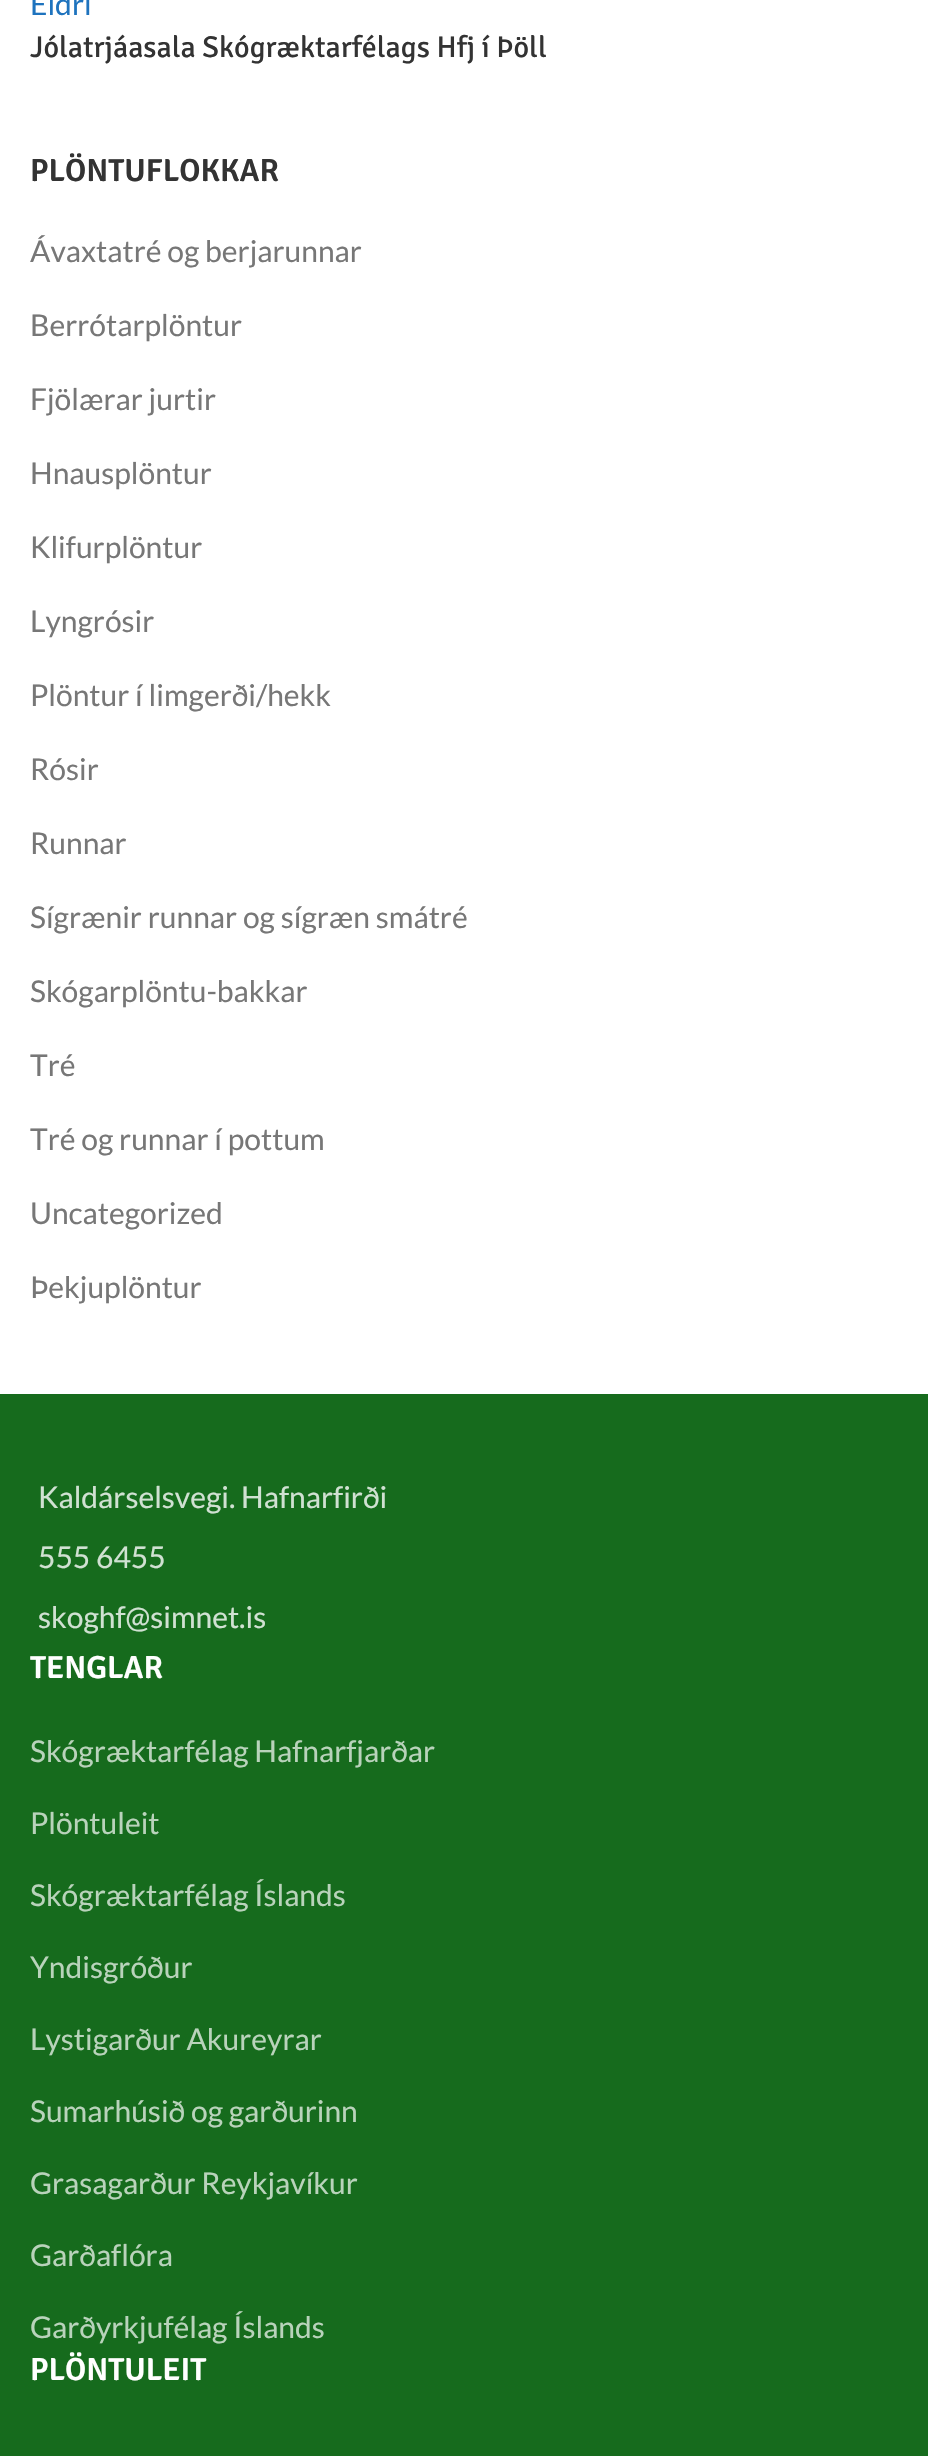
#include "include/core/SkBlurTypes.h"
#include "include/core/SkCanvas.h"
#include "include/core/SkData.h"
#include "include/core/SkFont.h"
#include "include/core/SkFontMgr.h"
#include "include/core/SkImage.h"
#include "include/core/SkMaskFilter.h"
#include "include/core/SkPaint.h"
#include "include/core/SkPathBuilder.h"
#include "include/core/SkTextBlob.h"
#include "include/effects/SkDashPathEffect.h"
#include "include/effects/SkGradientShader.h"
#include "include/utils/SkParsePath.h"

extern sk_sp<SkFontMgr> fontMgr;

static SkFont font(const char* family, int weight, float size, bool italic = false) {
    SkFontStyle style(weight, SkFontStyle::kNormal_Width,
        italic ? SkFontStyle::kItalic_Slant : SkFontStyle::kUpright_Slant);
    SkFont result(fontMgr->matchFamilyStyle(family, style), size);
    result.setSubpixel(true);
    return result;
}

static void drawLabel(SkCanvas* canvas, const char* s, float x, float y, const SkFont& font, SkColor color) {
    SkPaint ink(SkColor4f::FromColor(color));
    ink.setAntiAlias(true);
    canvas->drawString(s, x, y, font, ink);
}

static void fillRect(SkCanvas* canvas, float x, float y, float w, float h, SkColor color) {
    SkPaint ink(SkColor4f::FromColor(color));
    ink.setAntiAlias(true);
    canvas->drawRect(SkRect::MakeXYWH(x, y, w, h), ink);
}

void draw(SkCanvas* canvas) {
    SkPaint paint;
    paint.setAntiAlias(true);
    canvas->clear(0xFFFFFFFF);
    SkFont font1 = font("Lato", 400, 30);
    drawLabel(canvas, "Eldri", 30, 15, font1, 0xFF1E73BE);
    SkFont font2 = font("Signika", 400, 30);
    drawLabel(canvas, "Jólatrjáasala Skógræktarfélags Hfj í Þöll", 30, 57, font2, 0xFF333333);
    SkFont font3 = font("Signika", 600, 32);
    drawLabel(canvas, "PLÖNTUFLOKKAR", 30, 181, font3, 0xFF333333);
    drawLabel(canvas, "Ávaxtatré og berjarunnar", 30, 262, font1, 0xFF777777);
    drawLabel(canvas, "Berrótarplöntur", 30, 336, font1, 0xFF777777);
    drawLabel(canvas, "Fjölærar jurtir", 30, 410, font1, 0xFF777777);
    drawLabel(canvas, "Hnausplöntur", 30, 484, font1, 0xFF777777);
    drawLabel(canvas, "Klifurplöntur", 30, 558, font1, 0xFF777777);
    drawLabel(canvas, "Lyngrósir", 30, 632, font1, 0xFF777777);
    drawLabel(canvas, "Plöntur í limgerði/hekk", 30, 706, font1, 0xFF777777);
    drawLabel(canvas, "Rósir", 30, 780, font1, 0xFF777777);
    drawLabel(canvas, "Runnar", 30, 854, font1, 0xFF777777);
    drawLabel(canvas, "Sígrænir runnar og sígræn smátré", 30, 928, font1, 0xFF777777);
    drawLabel(canvas, "Skógarplöntu-bakkar", 30, 1002, font1, 0xFF777777);
    drawLabel(canvas, "Tré", 30, 1076, font1, 0xFF777777);
    drawLabel(canvas, "Tré og runnar í pottum", 30, 1150, font1, 0xFF777777);
    drawLabel(canvas, "Uncategorized", 30, 1224, font1, 0xFF777777);
    drawLabel(canvas, "Þekjuplöntur", 30, 1298, font1, 0xFF777777);
    fillRect(canvas, 0, 1394, 928, 1062, 0xFF166B1D);
    drawLabel(canvas, "Kaldárselsvegi. Hafnarfirði", 38, 1508, font1, 0xFFD0E1D2);
    drawLabel(canvas, "555 6455", 38, 1568, font1, 0xFFD0E1D2);
    drawLabel(canvas, "skoghf@simnet.is", 38, 1628, font1, 0xFFD0E1D2);
    drawLabel(canvas, "TENGLAR", 30, 1678, font3, 0xFFFFFFFF);
    drawLabel(canvas, "Skógræktarfélag Hafnarfjarðar", 30, 1762, font1, 0xFFB9D3BB);
    drawLabel(canvas, "Plöntuleit", 30, 1834, font1, 0xFFB9D3BB);
    drawLabel(canvas, "Skógræktarfélag Íslands", 30, 1906, font1, 0xFFB9D3BB);
    drawLabel(canvas, "Yndisgróður", 30, 1978, font1, 0xFFB9D3BB);
    drawLabel(canvas, "Lystigarður Akureyrar", 30, 2050, font1, 0xFFB9D3BB);
    drawLabel(canvas, "Sumarhúsið og garðurinn", 30, 2122, font1, 0xFFB9D3BB);
    drawLabel(canvas, "Grasagarður Reykjavíkur", 30, 2194, font1, 0xFFB9D3BB);
    drawLabel(canvas, "Garðaflóra", 30, 2266, font1, 0xFFB9D3BB);
    drawLabel(canvas, "Garðyrkjufélag Íslands", 30, 2338, font1, 0xFFB9D3BB);
    drawLabel(canvas, "PLÖNTULEIT", 30, 2380, font3, 0xFFFFFFFF);
}
